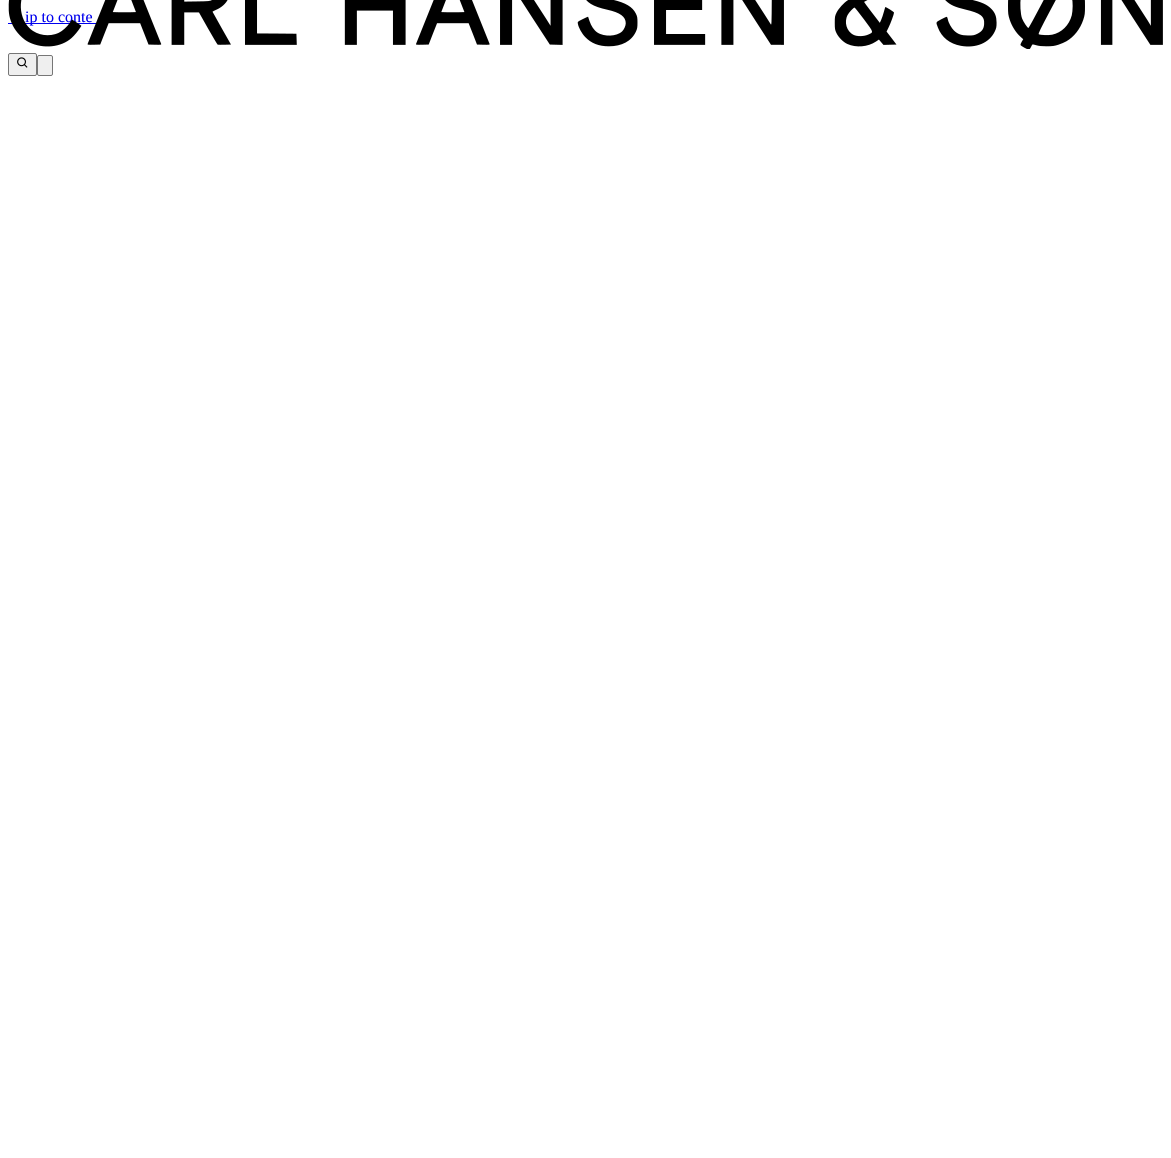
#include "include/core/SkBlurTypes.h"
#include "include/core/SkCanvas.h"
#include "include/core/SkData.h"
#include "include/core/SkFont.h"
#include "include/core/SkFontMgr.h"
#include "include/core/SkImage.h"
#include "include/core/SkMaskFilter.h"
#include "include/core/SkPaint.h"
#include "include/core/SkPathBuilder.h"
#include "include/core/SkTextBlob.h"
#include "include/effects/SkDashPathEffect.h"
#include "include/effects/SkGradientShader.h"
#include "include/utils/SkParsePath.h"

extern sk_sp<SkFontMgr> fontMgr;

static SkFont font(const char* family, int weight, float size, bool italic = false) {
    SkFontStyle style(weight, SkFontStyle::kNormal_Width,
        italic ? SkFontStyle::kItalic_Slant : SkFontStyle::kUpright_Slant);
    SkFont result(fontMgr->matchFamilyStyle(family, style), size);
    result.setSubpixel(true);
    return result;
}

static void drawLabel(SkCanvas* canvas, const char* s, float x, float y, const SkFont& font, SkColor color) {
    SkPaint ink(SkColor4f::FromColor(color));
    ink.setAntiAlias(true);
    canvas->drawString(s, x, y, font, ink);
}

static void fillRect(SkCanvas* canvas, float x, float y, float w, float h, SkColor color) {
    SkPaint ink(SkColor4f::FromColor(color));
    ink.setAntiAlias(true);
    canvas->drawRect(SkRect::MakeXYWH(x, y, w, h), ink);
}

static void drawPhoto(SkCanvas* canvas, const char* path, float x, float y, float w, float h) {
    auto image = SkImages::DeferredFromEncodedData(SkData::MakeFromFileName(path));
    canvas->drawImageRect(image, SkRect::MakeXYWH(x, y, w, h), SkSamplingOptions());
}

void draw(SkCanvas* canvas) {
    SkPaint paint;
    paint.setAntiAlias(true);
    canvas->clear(0xFFFFFFFF);
    fillRect(canvas, 8, 23, 88, 1, 0xFF0000EE);
    SkFont font1 = font("Liberation Serif", 400, 16);
    drawLabel(canvas, "ip to conte", 25, 22, font1, 0xFF0000EE);
    drawPhoto(canvas, "assets/img1.png", 8, 0, 1155, 49);
    paint.setColor(0xFFEFEFEF);
    canvas->drawRoundRect(SkRect::MakeXYWH(8.5f, 53.5f, 28, 22), 1.5f, 1.5f, paint);
    paint.setStroke(true);
    paint.setStrokeWidth(1);
    paint.setColor(0xFF767676);
    canvas->drawRoundRect(SkRect::MakeXYWH(8.5f, 53.5f, 28, 22), 1.5f, 1.5f, paint);
    drawPhoto(canvas, "assets/img2.png", 17, 57, 11, 11);
    paint.setStroke(false);
    paint.setColor(0xFFEFEFEF);
    canvas->drawRoundRect(SkRect::MakeXYWH(37.5f, 55.5f, 15, 20), 1.5f, 1.5f, paint);
    paint.setStroke(true);
    paint.setColor(0xFF767676);
    canvas->drawRoundRect(SkRect::MakeXYWH(37.5f, 55.5f, 15, 20), 1.5f, 1.5f, paint);
}
